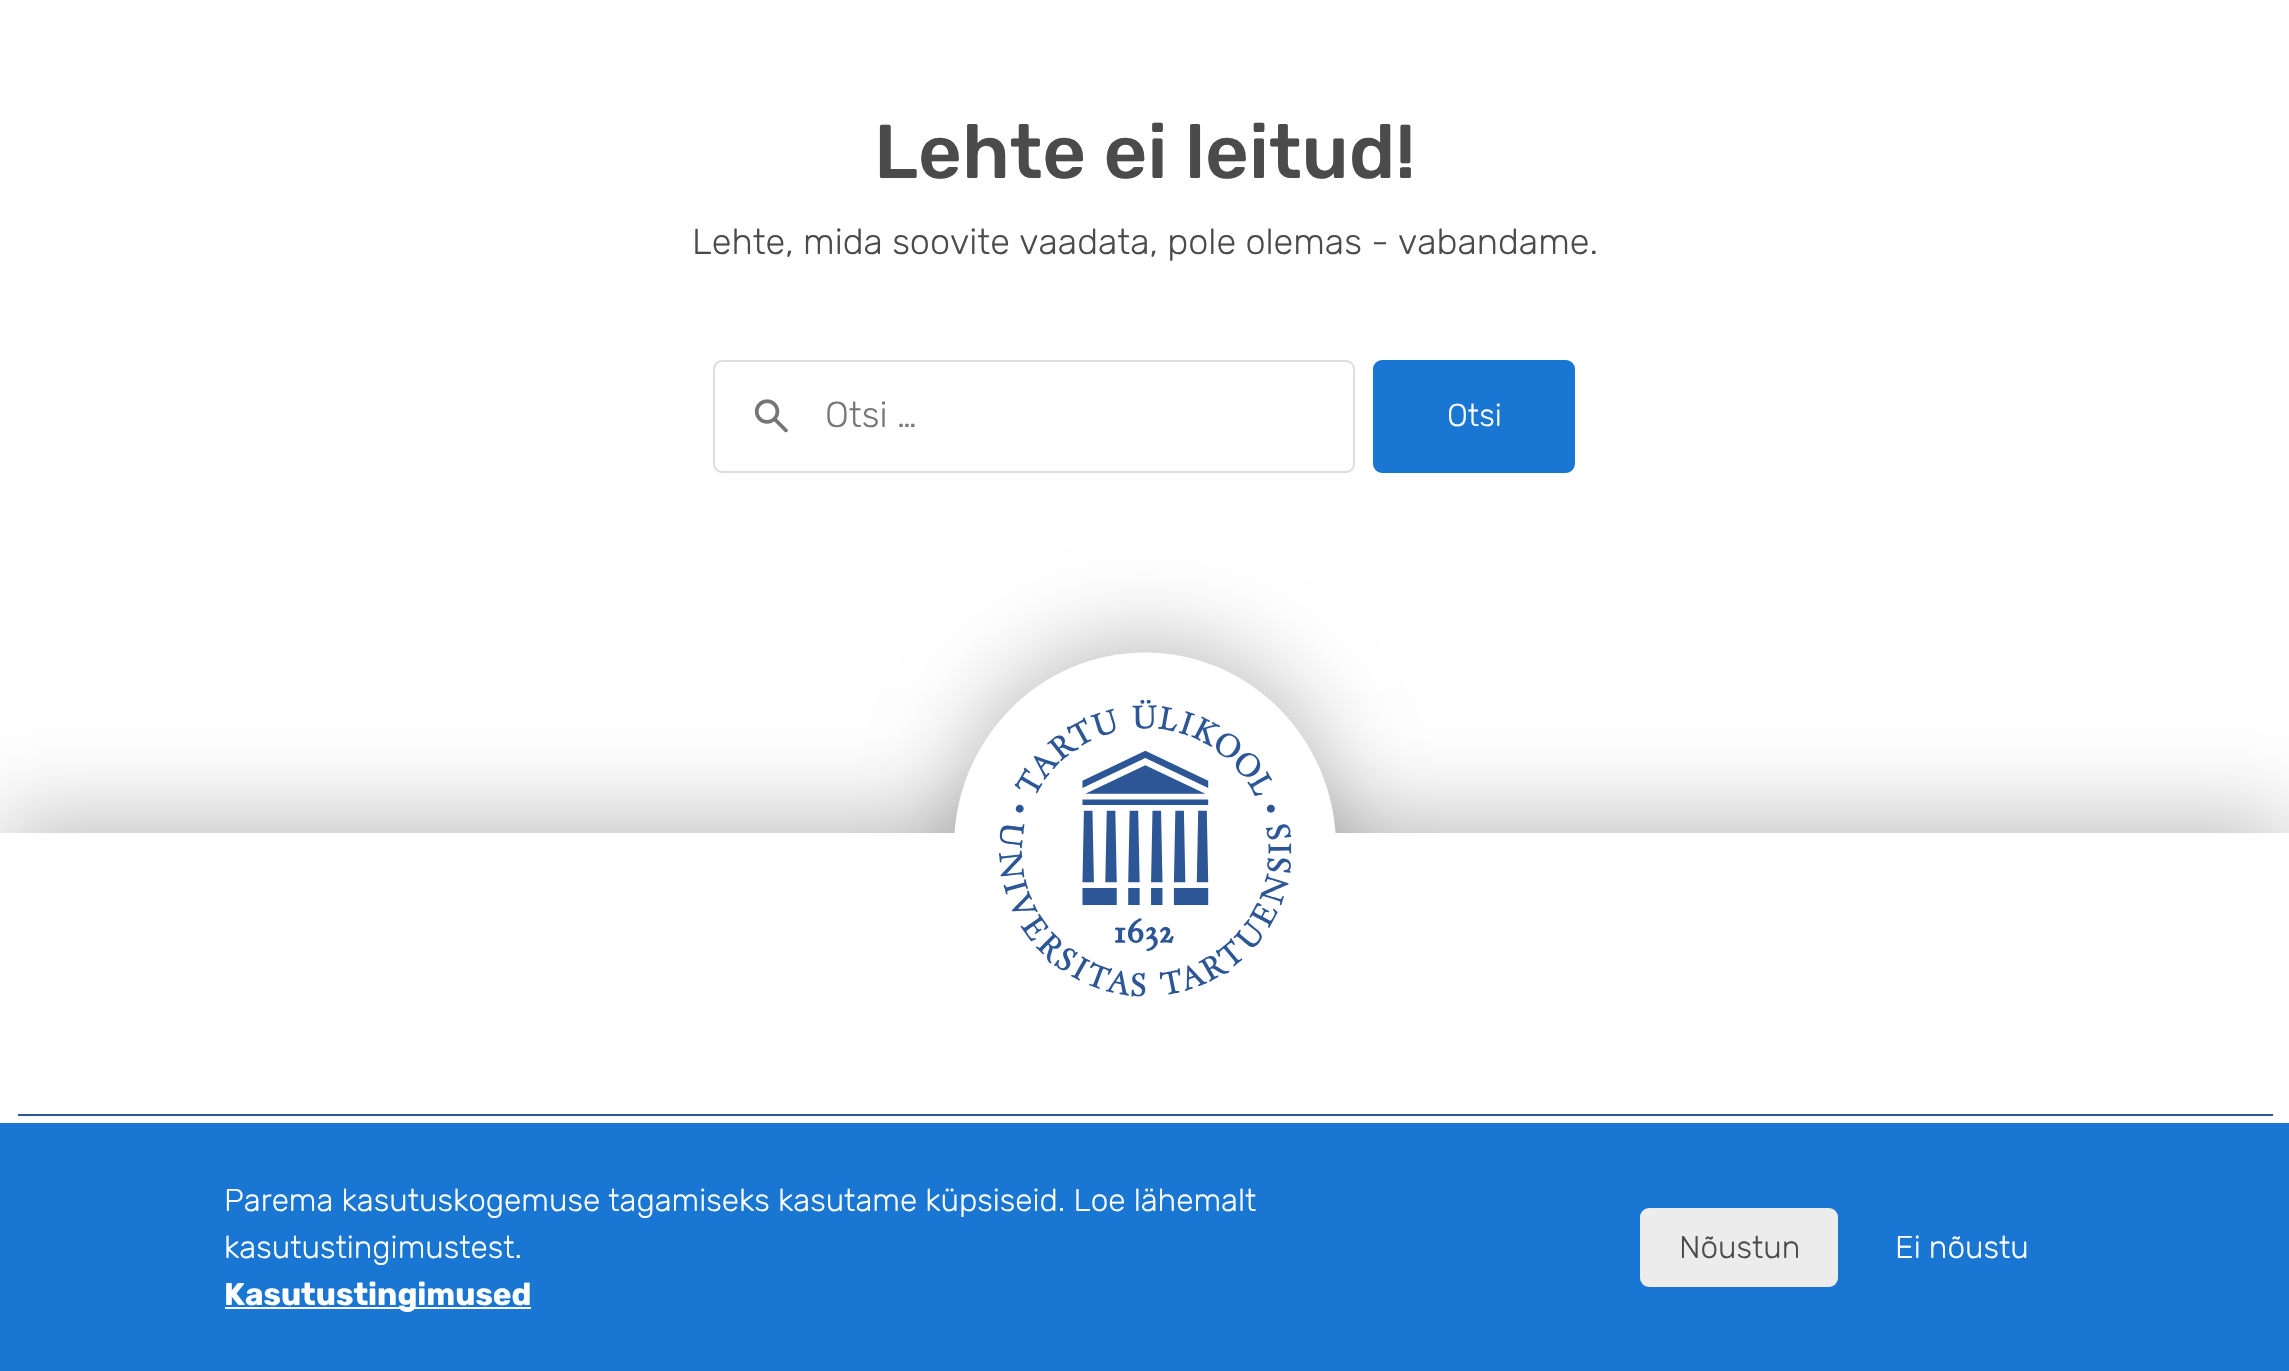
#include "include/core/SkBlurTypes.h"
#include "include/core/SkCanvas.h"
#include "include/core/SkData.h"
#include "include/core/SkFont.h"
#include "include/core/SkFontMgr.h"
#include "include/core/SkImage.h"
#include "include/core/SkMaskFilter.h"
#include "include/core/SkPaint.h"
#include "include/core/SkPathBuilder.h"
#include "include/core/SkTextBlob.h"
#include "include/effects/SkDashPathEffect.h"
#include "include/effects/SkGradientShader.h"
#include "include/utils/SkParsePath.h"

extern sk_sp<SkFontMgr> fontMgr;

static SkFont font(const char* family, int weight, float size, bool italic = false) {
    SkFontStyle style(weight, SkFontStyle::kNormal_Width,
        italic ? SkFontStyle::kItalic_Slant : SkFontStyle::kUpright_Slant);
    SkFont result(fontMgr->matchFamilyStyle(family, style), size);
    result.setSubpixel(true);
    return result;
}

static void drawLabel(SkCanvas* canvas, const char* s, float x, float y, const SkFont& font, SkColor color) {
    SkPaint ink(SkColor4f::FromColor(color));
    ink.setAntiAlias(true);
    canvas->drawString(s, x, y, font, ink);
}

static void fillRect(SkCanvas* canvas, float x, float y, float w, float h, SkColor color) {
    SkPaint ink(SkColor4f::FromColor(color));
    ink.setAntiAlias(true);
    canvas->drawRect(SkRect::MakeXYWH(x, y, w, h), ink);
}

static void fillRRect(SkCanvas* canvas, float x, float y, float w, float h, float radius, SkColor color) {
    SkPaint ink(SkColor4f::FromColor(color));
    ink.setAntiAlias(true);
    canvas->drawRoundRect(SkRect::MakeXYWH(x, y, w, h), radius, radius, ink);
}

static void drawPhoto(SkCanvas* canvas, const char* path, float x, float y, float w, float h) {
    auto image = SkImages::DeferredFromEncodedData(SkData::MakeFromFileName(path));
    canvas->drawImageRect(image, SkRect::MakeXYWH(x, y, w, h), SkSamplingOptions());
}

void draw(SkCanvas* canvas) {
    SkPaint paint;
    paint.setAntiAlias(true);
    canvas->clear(0xFFFFFFFF);
    SkFont font1 = font("Rubik", 500, 76);
    drawLabel(canvas, "Lehte ei leitud!", 874, 178, font1, 0xFF4B4B4B);
    SkFont font2 = font("Rubik", 300, 36);
    drawLabel(canvas, "Lehte, mida soovite vaadata, pole olemas - vabandame.", 692, 254, font2, 0xFF4B4B4B);
    paint.setStroke(true);
    paint.setStrokeWidth(2);
    paint.setColor(0xFFDDDDDD);
    canvas->drawRoundRect(SkRect::MakeXYWH(714, 361, 640, 111), 8, 8, paint);
    drawPhoto(canvas, "assets/img1.png", 754, 399, 34, 34);
    drawLabel(canvas, "Otsi …", 825, 427, font2, 0xFF787878);
    paint.setStroke(false);
    paint.setColor(0xFF1976D2);
    canvas->drawRoundRect(SkRect::MakeXYWH(1374, 361, 200, 111), 8, 8, paint);
    paint.setStroke(true);
    canvas->drawRoundRect(SkRect::MakeXYWH(1374, 361, 200, 111), 8, 8, paint);
    SkFont font3 = font("Rubik", 300, 31.5f);
    drawLabel(canvas, "Otsi", 1447, 426, font3, 0xFFFFFFFF);
    paint.setStroke(false);
    paint.setColor(0x40000000);
    paint.setMaskFilter(SkMaskFilter::MakeBlur(kNormal_SkBlurStyle, 43));
    canvas->drawRect(SkRect::MakeXYWH(0, 819, 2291, 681), paint);
    paint.setMaskFilter(nullptr);
    paint.setMaskFilter(SkMaskFilter::MakeBlur(kNormal_SkBlurStyle, 43));
    canvas->drawRoundRect(SkRect::MakeXYWH(954, 639, 383, 389), 191.5f, 191.5f, paint);
    paint.setMaskFilter(nullptr);
    fillRect(canvas, 0, 833, 2289, 290, 0xFFFFFFFF);
    fillRect(canvas, 18, 1114, 2255, 2, 0xFF2C5697);
    paint.setColor(0xFFFFFFFF);
    canvas->drawOval(SkRect::MakeXYWH(954, 652.5f, 382, 389), paint);
    drawPhoto(canvas, "assets/img2.png", 999, 699, 293, 298);
    fillRect(canvas, 0, 1123, 2289, 248, 0xFF1976D2);
    drawLabel(canvas, "Parema kasutuskogemuse tagamiseks kasutame küpsiseid. Loe lähemalt", 224, 1211, font3, 0xFFFFFFFF);
    drawLabel(canvas, "kasutustingimustest.", 224, 1258, font3, 0xFFFFFFFF);
    fillRect(canvas, 225, 1307, 306, 2, 0xFFFFFFFF);
    SkFont font4 = font("Rubik", 700, 31.5f);
    drawLabel(canvas, "Kasutustingimused", 224, 1305, font4, 0xFFFFFFFF);
    fillRRect(canvas, 1640, 1208, 198, 79, 9, 0xFFECECEC);
    drawLabel(canvas, "Nõustun", 1679, 1258, font3, 0xFF4B4B4B);
    drawLabel(canvas, "Ei nõustu", 1895, 1258, font3, 0xFFFFFFFF);
}
